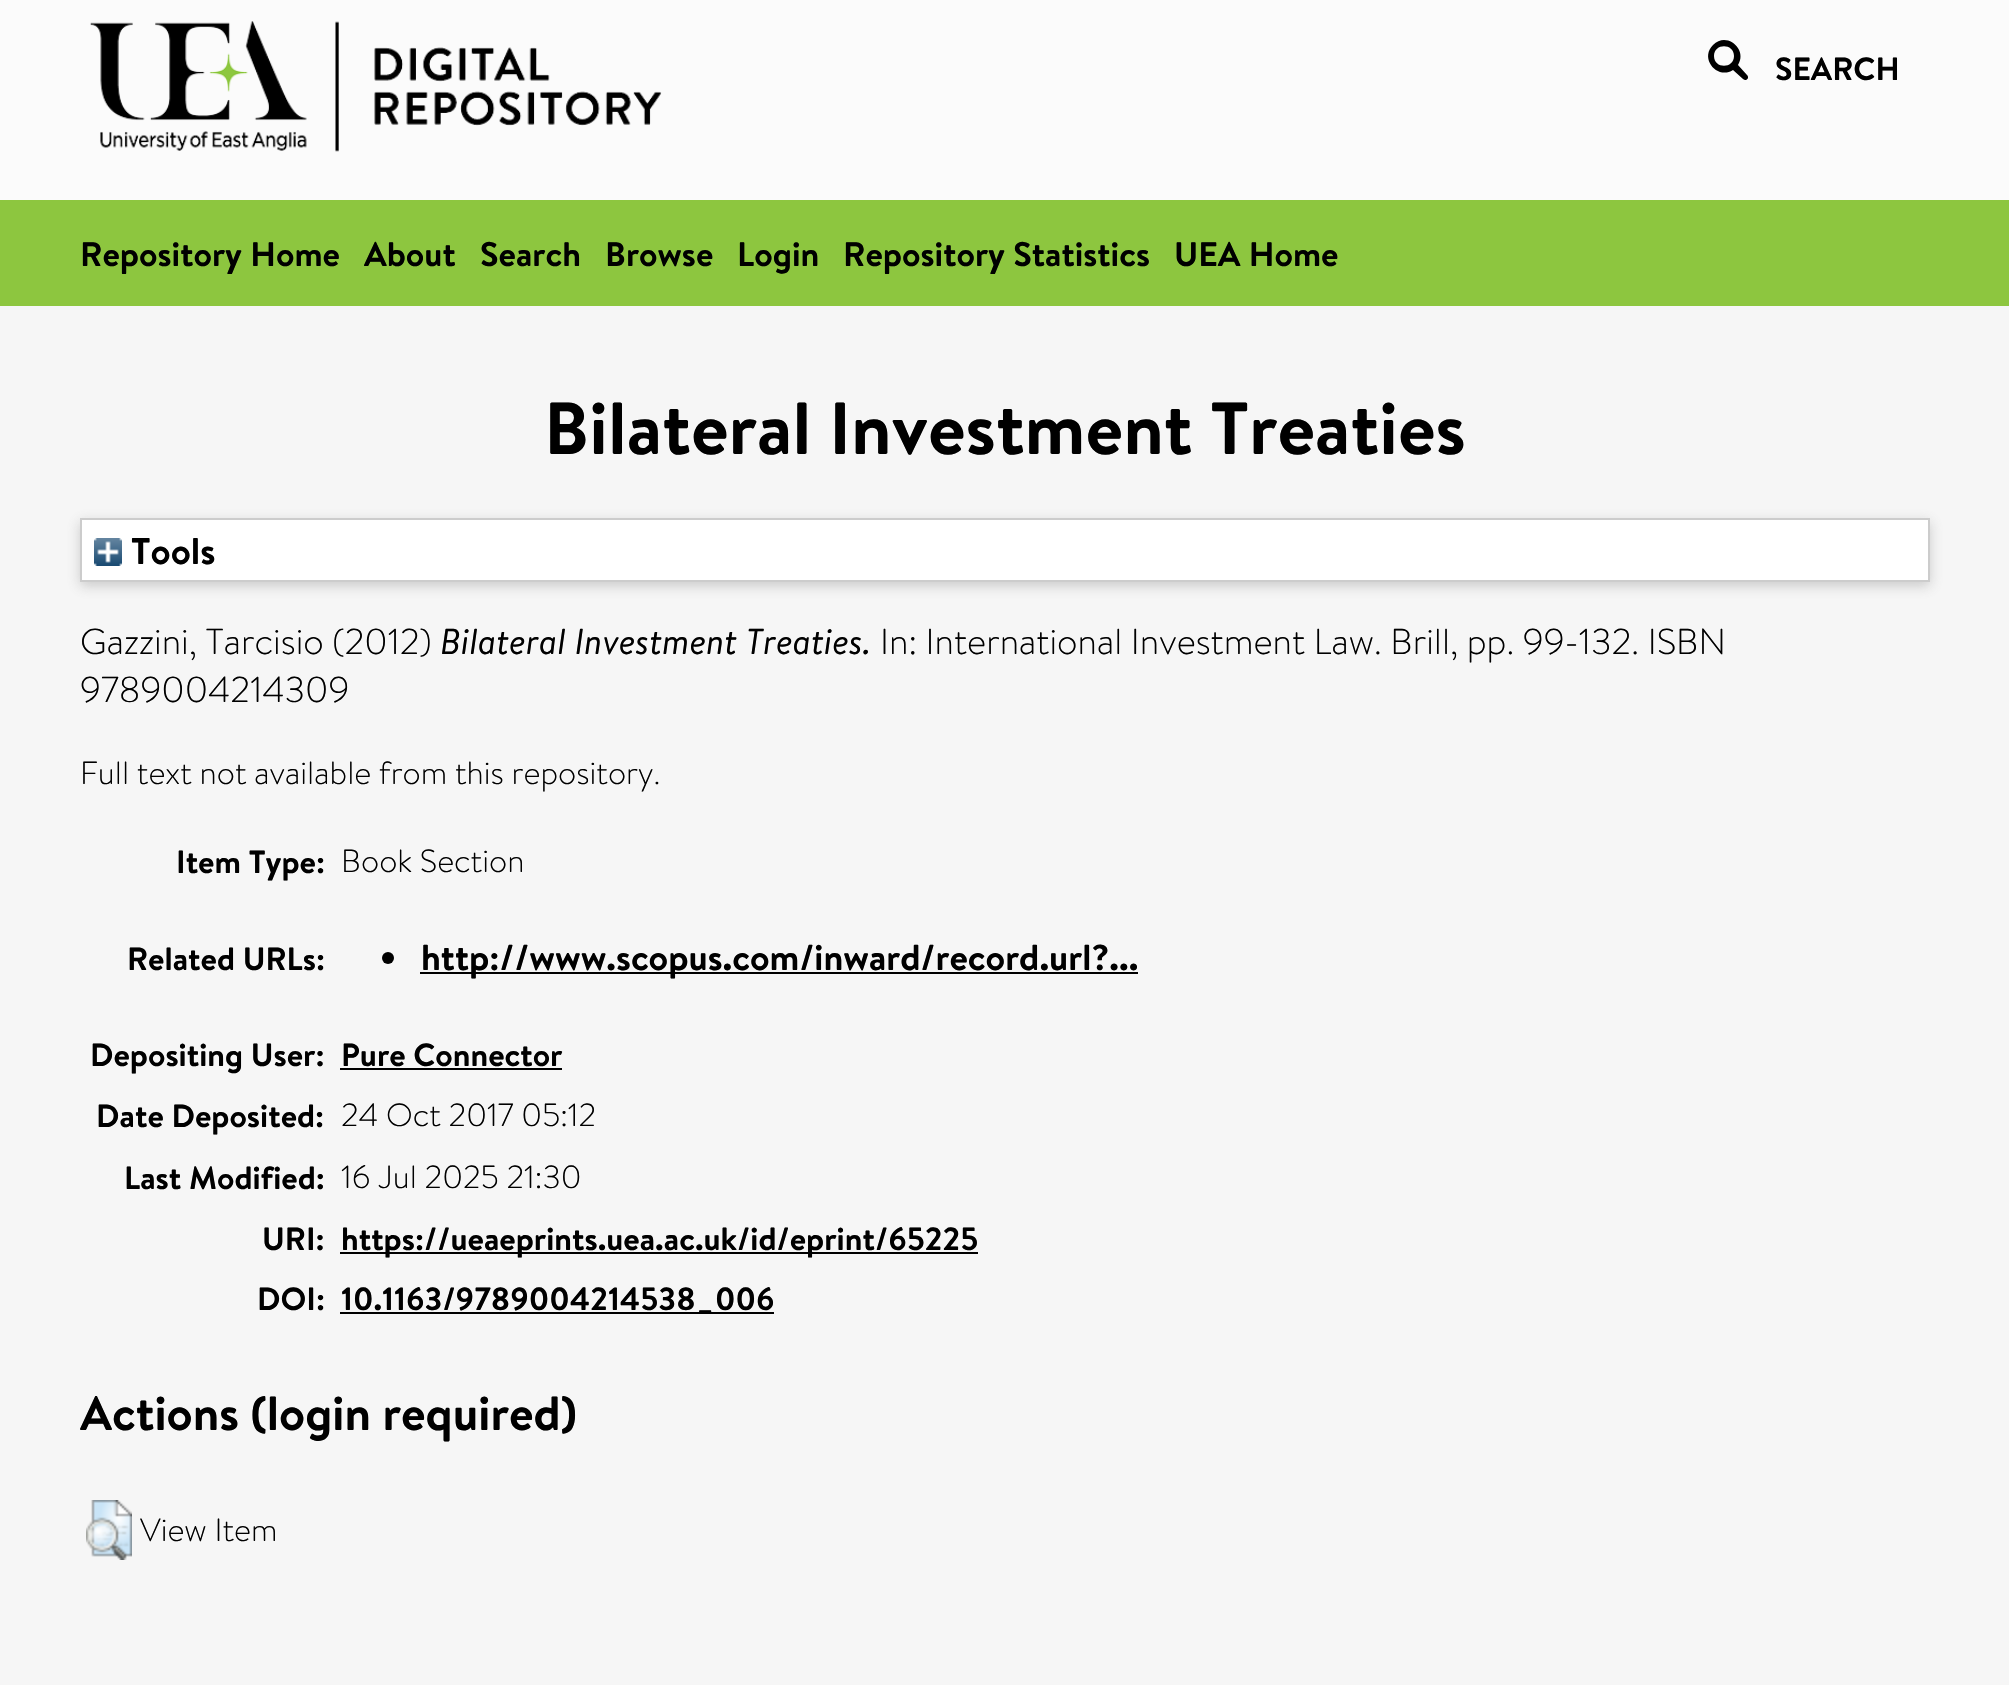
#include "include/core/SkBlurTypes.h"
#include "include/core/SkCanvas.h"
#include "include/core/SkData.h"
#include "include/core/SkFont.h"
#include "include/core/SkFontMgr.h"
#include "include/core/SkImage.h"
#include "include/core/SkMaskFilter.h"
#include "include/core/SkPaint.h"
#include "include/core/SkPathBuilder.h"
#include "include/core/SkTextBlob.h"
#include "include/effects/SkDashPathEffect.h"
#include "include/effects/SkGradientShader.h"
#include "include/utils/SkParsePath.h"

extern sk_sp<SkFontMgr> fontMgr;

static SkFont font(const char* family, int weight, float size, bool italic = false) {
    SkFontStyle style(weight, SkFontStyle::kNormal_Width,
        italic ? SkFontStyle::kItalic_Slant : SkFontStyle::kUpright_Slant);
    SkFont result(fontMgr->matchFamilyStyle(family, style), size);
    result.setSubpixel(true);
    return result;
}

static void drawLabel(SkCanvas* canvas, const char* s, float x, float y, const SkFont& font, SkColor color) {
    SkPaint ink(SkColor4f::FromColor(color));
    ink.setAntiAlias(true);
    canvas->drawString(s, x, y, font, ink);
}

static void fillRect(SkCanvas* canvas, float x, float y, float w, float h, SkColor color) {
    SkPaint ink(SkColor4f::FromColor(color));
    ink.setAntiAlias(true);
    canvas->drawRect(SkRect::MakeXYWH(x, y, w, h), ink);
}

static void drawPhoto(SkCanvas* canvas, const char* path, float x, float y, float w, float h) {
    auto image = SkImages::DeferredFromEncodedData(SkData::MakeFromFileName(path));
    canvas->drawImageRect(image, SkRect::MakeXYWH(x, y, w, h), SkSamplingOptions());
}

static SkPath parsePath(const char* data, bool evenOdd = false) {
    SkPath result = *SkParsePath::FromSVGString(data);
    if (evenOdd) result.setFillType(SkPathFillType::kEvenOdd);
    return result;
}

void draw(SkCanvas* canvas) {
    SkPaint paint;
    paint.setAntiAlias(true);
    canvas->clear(0xFFF6F6F6);
    fillRect(canvas, 0, 0, 2009, 200, 0xFFFBFBFB);
    drawPhoto(canvas, "assets/img1.png", 90, 21, 572, 131);
    SkFont font1 = font("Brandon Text", 700, 32);
    drawLabel(canvas, "SEARCH", 1775, 80, font1, 0xFF000000);
    paint.setColor(0xFF000000);
    canvas->drawPath(parsePath("M1747 75L1738 65C1748 50 1727 31 1713 45C1699 59 1718 80 1733 70L1743 79C1746 82 1750 78 1747 75ZM1714 56C1714 43 1734 43 1734 56C1734 69 1714 69 1714 56Z"), paint);
    fillRect(canvas, 0, 200, 2009, 106, 0xFF8DC63F);
    SkFont font2 = font("Brandon Text", 700, 34);
    drawLabel(canvas, "Repository Home", 80, 266, font2, 0xFF000000);
    drawLabel(canvas, "About", 364, 266, font2, 0xFF000000);
    drawLabel(canvas, "Search", 480, 266, font2, 0xFF000000);
    drawLabel(canvas, "Browse", 605, 266, font2, 0xFF000000);
    drawLabel(canvas, "Login", 737, 266, font2, 0xFF000000);
    drawLabel(canvas, "Repository Statistics", 843, 266, font2, 0xFF000000);
    drawLabel(canvas, "UEA Home", 1174, 266, font2, 0xFF000000);
    SkFont font3 = font("Brandon Text", 700, 73.6f);
    drawLabel(canvas, "Bilateral Investment Treaties", 544, 454, font3, 0xFF000000);
    paint.setColor(0x4D646464);
    paint.setMaskFilter(SkMaskFilter::MakeBlur(kNormal_SkBlurStyle, 6));
    canvas->drawRect(SkRect::MakeXYWH(80, 522, 1850, 64), paint);
    paint.setMaskFilter(nullptr);
    paint.setColor(0xFFFFFFFF);
    canvas->drawRect(SkRect::MakeXYWH(81, 519, 1848, 62), paint);
    paint.setStroke(true);
    paint.setStrokeWidth(2);
    paint.setColor(0xFFCCCCCC);
    canvas->drawRect(SkRect::MakeXYWH(81, 519, 1848, 62), paint);
    drawPhoto(canvas, "assets/img2.png", 94, 538, 28, 28);
    SkFont font4 = font("Brandon Text", 700, 37);
    drawLabel(canvas, "Tools", 131, 564, font4, 0xFF000000);
    SkFont font5 = font("Brandon Text", 300, 36);
    drawLabel(canvas, "Gazzini, Tarcisio (2012)", 80, 654, font5, 0xFF000000);
    SkFont font6 = font("Brandon Text", 400, 36, true);
    drawLabel(canvas, "Bilateral Investment Treaties.", 440, 654, font6, 0xFF000000);
    drawLabel(canvas, "In: International Investment Law. Brill, pp. 99-132. ISBN", 880, 654, font5, 0xFF000000);
    drawLabel(canvas, "9789004214309", 80, 702, font5, 0xFF000000);
    SkFont font7 = font("Brandon Text", 300, 32);
    drawLabel(canvas, "Full text not available from this repository.", 80, 784, font7, 0xFF000000);
    drawLabel(canvas, "Item Type:", 176, 873, font1, 0xFF000000);
    drawLabel(canvas, "Book Section", 341, 872, font7, 0xFF000000);
    drawLabel(canvas, "Related URLs:", 127, 970, font1, 0xFF000000);
    paint.setStroke(false);
    paint.setColor(0xFF000000);
    canvas->drawCircle(388, 958, 6, paint);
    fillRect(canvas, 420, 972, 718, 2, 0xFF000000);
    SkFont font8 = font("Brandon Text", 700, 36);
    drawLabel(canvas, "http://www.scopus.com/inward/record.url?...", 421, 970, font8, 0xFF000000);
    drawLabel(canvas, "Depositing User:", 90, 1066, font1, 0xFF000000);
    drawLabel(canvas, "Pure Connector", 341, 1066, font1, 0xFF000000);
    fillRect(canvas, 340, 1068, 222, 2, 0xFF000000);
    drawLabel(canvas, "Date Deposited:", 96, 1127, font1, 0xFF000000);
    drawLabel(canvas, "24 Oct 2017 05:12", 341, 1126, font7, 0xFF000000);
    drawLabel(canvas, "Last Modified:", 124, 1189, font1, 0xFF000000);
    drawLabel(canvas, "16 Jul 2025 21:30", 341, 1188, font7, 0xFF000000);
    drawLabel(canvas, "URI:", 262, 1250, font1, 0xFF000000);
    fillRect(canvas, 340, 1252, 638, 2, 0xFF000000);
    drawLabel(canvas, "https://ueaeprints.uea.ac.uk/id/eprint/65225", 341, 1250, font1, 0xFF000000);
    drawLabel(canvas, "DOI:", 257, 1310, font1, 0xFF000000);
    fillRect(canvas, 340, 1312, 434, 2, 0xFF000000);
    drawLabel(canvas, "10.1163/9789004214538_006", 341, 1310, font1, 0xFF000000);
    SkFont font9 = font("Brandon Text", 700, 48);
    drawLabel(canvas, "Actions (login required)", 80, 1430, font9, 0xFF000000);
    drawPhoto(canvas, "assets/img3.png", 86, 1500, 46, 60);
    drawLabel(canvas, "View Item", 140, 1541, font7, 0xFF000000);
}
